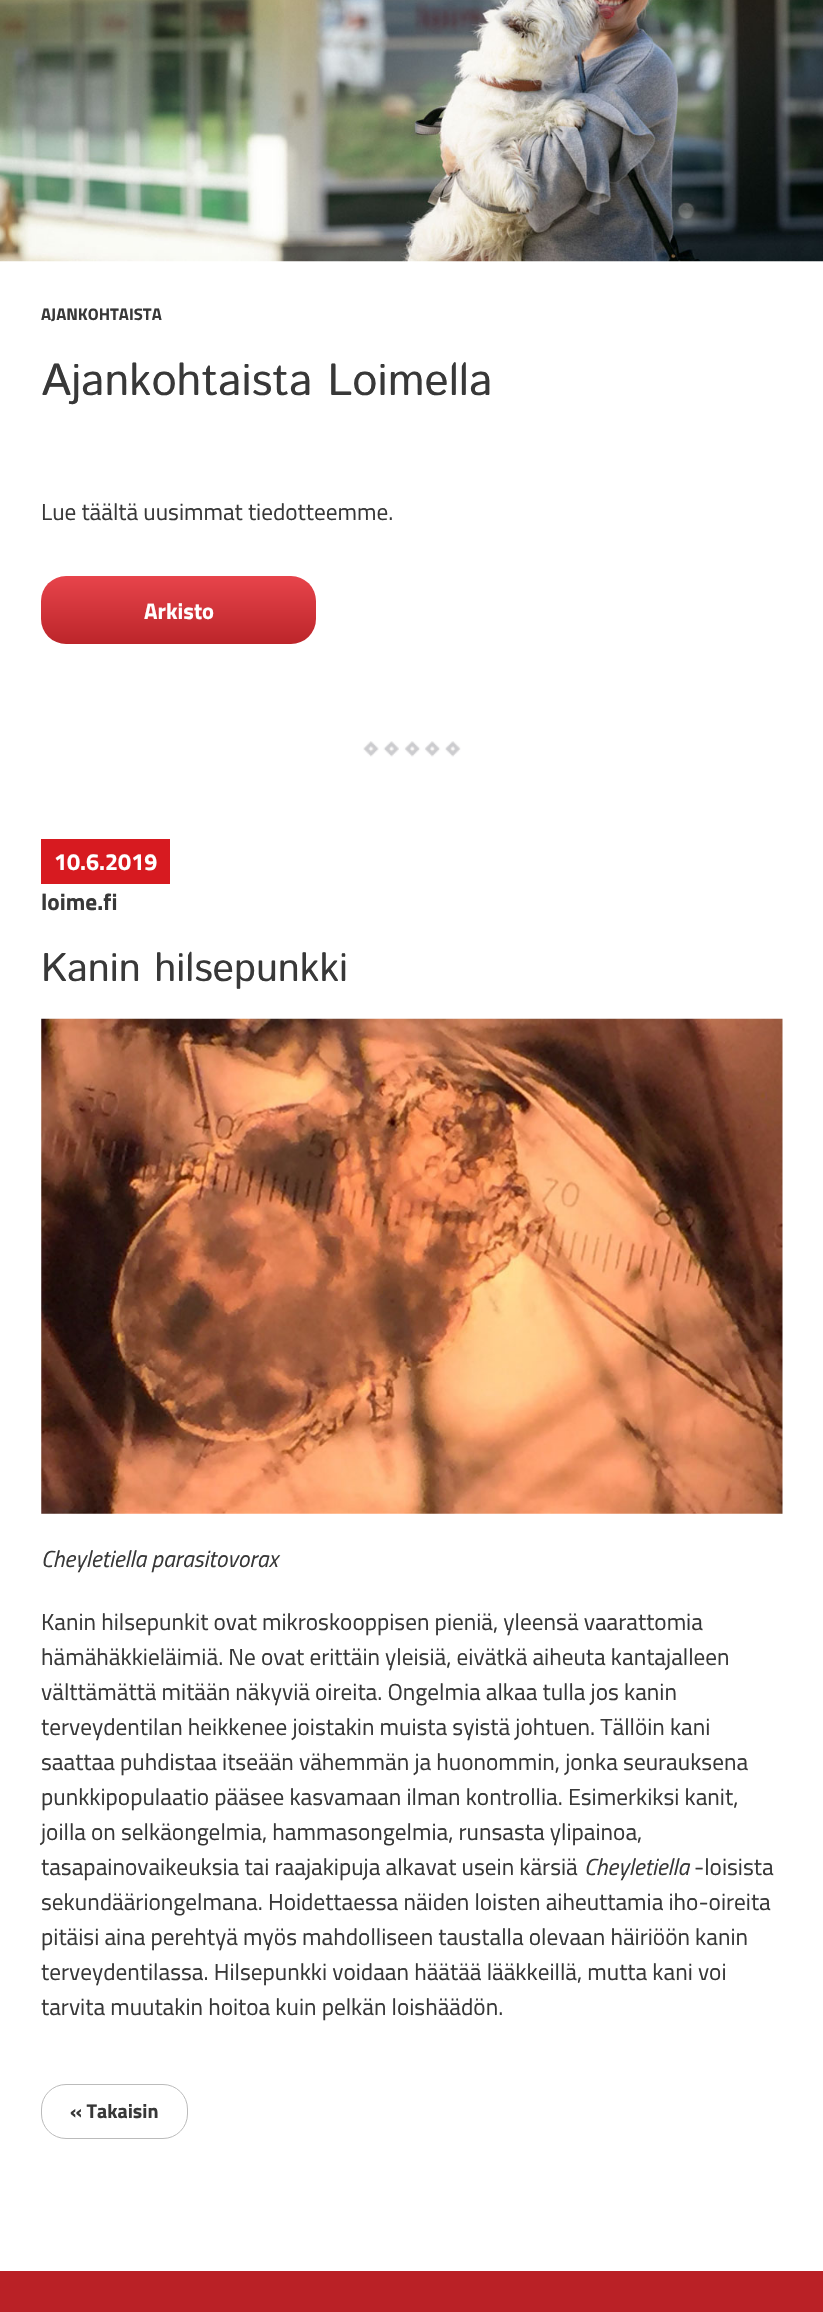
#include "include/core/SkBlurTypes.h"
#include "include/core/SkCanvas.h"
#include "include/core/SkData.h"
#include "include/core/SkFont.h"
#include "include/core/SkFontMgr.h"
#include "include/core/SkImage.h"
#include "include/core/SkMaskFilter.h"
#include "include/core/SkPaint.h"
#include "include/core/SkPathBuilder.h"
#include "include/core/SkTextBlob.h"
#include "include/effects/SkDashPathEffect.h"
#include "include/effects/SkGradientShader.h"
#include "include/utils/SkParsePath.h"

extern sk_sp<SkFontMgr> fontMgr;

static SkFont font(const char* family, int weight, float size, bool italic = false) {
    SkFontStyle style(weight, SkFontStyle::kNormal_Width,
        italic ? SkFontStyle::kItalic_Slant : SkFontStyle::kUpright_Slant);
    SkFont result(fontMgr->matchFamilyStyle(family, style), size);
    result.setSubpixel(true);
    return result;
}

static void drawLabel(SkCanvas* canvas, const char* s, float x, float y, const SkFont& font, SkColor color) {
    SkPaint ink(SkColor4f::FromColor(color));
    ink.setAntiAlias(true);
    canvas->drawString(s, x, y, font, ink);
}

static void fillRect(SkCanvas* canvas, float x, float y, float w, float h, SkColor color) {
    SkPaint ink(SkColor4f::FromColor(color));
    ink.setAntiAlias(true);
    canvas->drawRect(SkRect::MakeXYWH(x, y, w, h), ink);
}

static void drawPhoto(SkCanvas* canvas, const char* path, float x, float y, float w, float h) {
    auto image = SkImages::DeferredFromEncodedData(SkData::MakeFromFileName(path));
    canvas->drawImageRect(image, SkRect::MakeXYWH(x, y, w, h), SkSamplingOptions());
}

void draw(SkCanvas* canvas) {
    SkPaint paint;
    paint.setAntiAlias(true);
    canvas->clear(0xFFFFFFFF);
    drawPhoto(canvas, "assets/img1.png", 0, 0, 823, 262);
    SkFont font1 = font("Titillium Web", 700, 16.75f);
    drawLabel(canvas, "AJANKOHTAISTA", 41, 320, font1, 0xFF383838);
    SkFont font2 = font("Istok Web", 400, 45);
    drawLabel(canvas, "Ajankohtaista Loimella", 41, 395, font2, 0xFF383838);
    SkFont font3 = font("Titillium Web", 400, 23.3f);
    drawLabel(canvas, "Lue täältä uusimmat tiedotteemme.", 41, 520, font3, 0xFF383838);
    {
        const SkColor colors[] = {0xFFE7444B, 0xFFBC252A};
        const float stops[] = {0, 1};
        const SkPoint ends[] = {{179, 576}, {179, 644}};
        paint.setShader(SkGradientShader::MakeLinear(ends, colors, stops, 2, SkTileMode::kClamp));
        paint.setAlpha(255);
    }
    canvas->drawRoundRect(SkRect::MakeXYWH(41, 576, 275, 68), 25, 25, paint);
    SkFont font4 = font("Titillium Web", 700, 22.5f);
    drawLabel(canvas, "Arkisto", 144, 619, font4, 0xFFFFFFFF);
    drawPhoto(canvas, "assets/img2.png", 363, 741, 98, 16);
    fillRect(canvas, 41, 839, 129, 45, 0xFFD71A20);
    SkFont font5 = font("Titillium Web", 700, 23.3f);
    drawLabel(canvas, "10.6.2019", 54, 870, font5, 0xFFFFFFFF);
    drawLabel(canvas, "loime.fi", 41, 910, font5, 0xFF383838);
    SkFont font6 = font("Istok Web", 400, 40);
    drawLabel(canvas, "Kanin hilsepunkki", 41, 981, font6, 0xFF383838);
    drawPhoto(canvas, "assets/img3.png", 41, 1018, 742, 496);
    SkFont font7 = font("Titillium Web", 400, 23.3f, true);
    drawLabel(canvas, "Cheyletiella parasitovorax", 41, 1567, font7, 0xFF383838);
    drawLabel(canvas, "Kanin hilsepunkit ovat mikroskooppisen pieniä, yleensä vaarattomia", 41, 1630, font3, 0xFF383838);
    drawLabel(canvas, "hämähäkkieläimiä. Ne ovat erittäin yleisiä, eivätkä aiheuta kantajalleen", 41, 1665, font3, 0xFF383838);
    drawLabel(canvas, "välttämättä mitään näkyviä oireita. Ongelmia alkaa tulla jos kanin", 41, 1700, font3, 0xFF383838);
    drawLabel(canvas, "terveydentilan heikkenee joistakin muista syistä johtuen. Tällöin kani", 41, 1735, font3, 0xFF383838);
    drawLabel(canvas, "saattaa puhdistaa itseään vähemmän ja huonommin, jonka seurauksena", 41, 1770, font3, 0xFF383838);
    drawLabel(canvas, "punkkipopulaatio pääsee kasvamaan ilman kontrollia. Esimerkiksi kanit,", 41, 1805, font3, 0xFF383838);
    drawLabel(canvas, "joilla on selkäongelmia, hammasongelmia, runsasta ylipainoa,", 41, 1840, font3, 0xFF383838);
    drawLabel(canvas, "tasapainovaikeuksia tai raajakipuja alkavat usein kärsiä", 41, 1875, font3, 0xFF383838);
    drawLabel(canvas, "Cheyletiella", 584, 1875, font7, 0xFF383838);
    drawLabel(canvas, "-loisista", 694, 1875, font3, 0xFF383838);
    drawLabel(canvas, "sekundääriongelmana. Hoidettaessa näiden loisten aiheuttamia iho-oireita", 41, 1910, font3, 0xFF383838);
    drawLabel(canvas, "pitäisi aina perehtyä myös mahdolliseen taustalla olevaan häiriöön kanin", 41, 1945, font3, 0xFF383838);
    drawLabel(canvas, "terveydentilassa. Hilsepunkki voidaan häätää lääkkeillä, mutta kani voi", 41, 1980, font3, 0xFF383838);
    drawLabel(canvas, "tarvita muutakin hoitoa kuin pelkän loishäädön.", 41, 2015, font3, 0xFF383838);
    paint.setStroke(true);
    paint.setStrokeWidth(1);
    paint.setShader(nullptr);
    paint.setColor(0xFFBBBBBB);
    canvas->drawRoundRect(SkRect::MakeXYWH(41.5f, 2084.5f, 146, 54), 24.5f, 24.5f, paint);
    SkFont font8 = font("Titillium Web", 700, 20);
    drawLabel(canvas, "« Takaisin", 70, 2118, font8, 0xFF383838);
    fillRect(canvas, 0, 2271, 823, 41, 0xFFBA2126);
}
